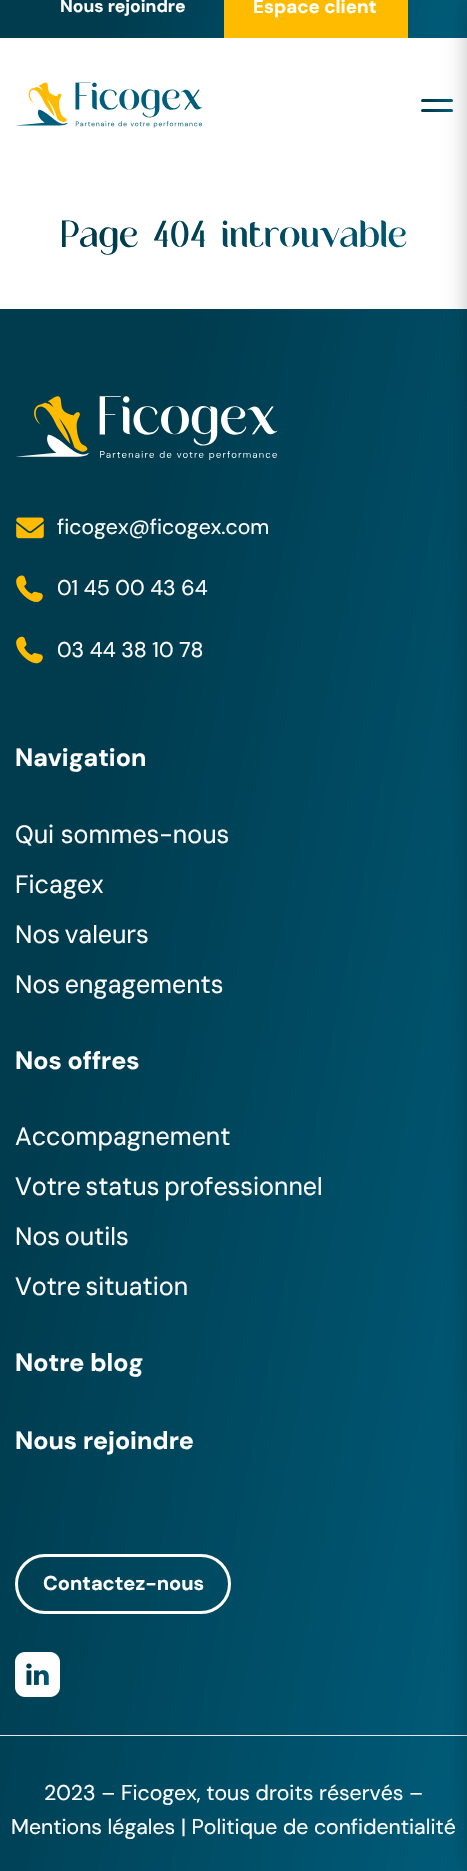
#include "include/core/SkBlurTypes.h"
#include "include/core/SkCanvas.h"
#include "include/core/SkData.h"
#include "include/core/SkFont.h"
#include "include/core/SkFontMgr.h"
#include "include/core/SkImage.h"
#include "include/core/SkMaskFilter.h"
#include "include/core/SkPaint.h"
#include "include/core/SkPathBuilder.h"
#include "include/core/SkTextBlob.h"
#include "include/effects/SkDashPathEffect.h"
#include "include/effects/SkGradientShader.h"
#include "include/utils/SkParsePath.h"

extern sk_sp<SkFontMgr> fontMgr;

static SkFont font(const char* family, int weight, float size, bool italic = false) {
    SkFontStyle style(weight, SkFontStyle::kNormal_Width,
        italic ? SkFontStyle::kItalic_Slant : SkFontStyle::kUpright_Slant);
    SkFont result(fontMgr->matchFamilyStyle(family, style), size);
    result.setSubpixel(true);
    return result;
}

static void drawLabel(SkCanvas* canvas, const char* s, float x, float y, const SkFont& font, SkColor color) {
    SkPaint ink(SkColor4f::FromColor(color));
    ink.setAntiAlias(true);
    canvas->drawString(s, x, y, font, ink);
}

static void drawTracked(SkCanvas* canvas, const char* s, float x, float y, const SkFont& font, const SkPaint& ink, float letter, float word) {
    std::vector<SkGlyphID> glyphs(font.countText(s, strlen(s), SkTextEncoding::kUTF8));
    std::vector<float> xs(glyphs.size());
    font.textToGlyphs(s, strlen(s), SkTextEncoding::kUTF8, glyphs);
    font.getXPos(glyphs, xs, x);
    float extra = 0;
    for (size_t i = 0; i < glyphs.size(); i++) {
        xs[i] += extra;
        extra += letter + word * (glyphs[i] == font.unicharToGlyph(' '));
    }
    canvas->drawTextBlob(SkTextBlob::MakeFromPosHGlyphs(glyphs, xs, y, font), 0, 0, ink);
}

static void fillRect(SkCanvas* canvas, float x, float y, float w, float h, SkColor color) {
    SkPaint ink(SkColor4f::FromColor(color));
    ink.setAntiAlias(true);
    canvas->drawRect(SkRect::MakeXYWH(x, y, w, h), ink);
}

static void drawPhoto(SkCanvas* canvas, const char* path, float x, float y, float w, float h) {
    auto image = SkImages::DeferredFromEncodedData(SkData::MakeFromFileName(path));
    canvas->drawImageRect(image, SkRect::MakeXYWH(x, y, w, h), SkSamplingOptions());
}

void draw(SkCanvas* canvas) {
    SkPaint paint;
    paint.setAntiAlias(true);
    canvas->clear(0xFFFFFFFF);
    drawPhoto(canvas, "assets/img1.png", 16, 82, 187, 46);
    {
        const SkColor colors[] = {0xFF003B4E, 0xFF005E7C};
        const float stops[] = {0.22f, 1};
        const SkPoint ends[] = {{422, 97}, {453, 103}};
        paint.setShader(SkGradientShader::MakeLinear(ends, colors, stops, 2, SkTileMode::kClamp));
        paint.setAlpha(255);
    }
    canvas->drawRoundRect(SkRect::MakeXYWH(421, 99, 32, 3), 1.5f, 1.5f, paint);
    {
        const SkColor colors[] = {0xFF003B4E, 0xFF005E7C};
        const float stops[] = {0.22f, 1};
        const SkPoint ends[] = {{422, 107}, {453, 113}};
        paint.setShader(SkGradientShader::MakeLinear(ends, colors, stops, 2, SkTileMode::kClamp));
        paint.setAlpha(255);
    }
    canvas->drawRoundRect(SkRect::MakeXYWH(421, 109, 32, 3), 1.5f, 1.5f, paint);
    {
        const SkColor colors[] = {0xFF003B4E, 0xFF005E7C};
        const float stops[] = {0.22f, 1};
        const SkPoint ends[] = {{2.8f, -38}, {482, 55}};
        paint.setShader(SkGradientShader::MakeLinear(ends, colors, stops, 2, SkTileMode::kClamp));
        paint.setAlpha(255);
    }
    canvas->drawRect(SkRect::MakeXYWH(0, 0, 467, 38), paint);
    {
        const SkColor colors[] = {0xFF003B4E, 0xFF005E7C};
        const float stops[] = {0.22f, 1};
        const SkPoint ends[] = {{-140, 1030}, {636, 1181}};
        paint.setShader(SkGradientShader::MakeLinear(ends, colors, stops, 2, SkTileMode::kClamp));
        paint.setAlpha(255);
    }
    canvas->drawRect(SkRect::MakeXYWH(0, 309, 467, 1562), paint);
    fillRect(canvas, 0, 1735, 467, 1, 0xFFE7E6F2);
    paint.setShader(nullptr);
    paint.setColor(0x40000000);
    paint.setMaskFilter(SkMaskFilter::MakeBlur(kNormal_SkBlurStyle, 12.5f));
    canvas->drawRect(SkRect::MakeXYWH(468, 0, 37, 1871), paint);
    paint.setMaskFilter(nullptr);
    SkFont font1 = font("DM Sans", 700, 17.5f);
    drawLabel(canvas, "Nous rejoindre", 60, 12, font1, 0xFFFFFFFF);
    fillRect(canvas, 224, 0, 184, 38, 0xFFFFBB00);
    SkFont font2 = font("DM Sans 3", 700, 18.75f);
    drawLabel(canvas, "Espace client", 253, 13, font2, 0xFFFFFFFF);
    SkFont font3 = font("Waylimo", 400, 40);
    {
        const SkColor colors[] = {0xFF003B4E, 0xFF005E7C};
        const float stops[] = {0.22f, 1};
        const SkPoint ends[] = {{19, 193}, {465, 280}};
        paint.setShader(SkGradientShader::MakeLinear(ends, colors, stops, 2, SkTileMode::kClamp));
        paint.setAlpha(255);
    }
    canvas->drawString("Page 404 introuvable", 60, 247, font3, paint);
    drawPhoto(canvas, "assets/img2.png", 15, 396, 263, 64);
    drawPhoto(canvas, "assets/img3.png", 16, 517, 28, 22);
    SkFont font4 = font("DM Sans", 400, 21.25f);
    drawLabel(canvas, "ficogex@ficogex.com", 57, 534, font4, 0xFFFFFFFF);
    drawPhoto(canvas, "assets/img4.png", 16, 575, 27, 27);
    drawLabel(canvas, "01 45 00 43 64", 57, 595, font4, 0xFFFFFFFF);
    drawPhoto(canvas, "assets/img5.png", 16, 636, 27, 28);
    drawLabel(canvas, "03 44 38 10 78", 57, 657, font4, 0xFFFFFFFF);
    SkFont font5 = font("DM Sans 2", 700, 25);
    drawLabel(canvas, "Navigation", 15, 766, font5, 0xFFFFFFFF);
    SkFont font6 = font("DM Sans 2", 400, 25);
    drawLabel(canvas, "Qui sommes-nous", 15, 843, font6, 0xFFFFFFFF);
    drawLabel(canvas, "Ficagex", 15, 893, font6, 0xFFFFFFFF);
    paint.setShader(nullptr);
    paint.setColor(0xFFFFFFFF);
    drawTracked(canvas, "Nos valeurs", 15, 943, font6, paint, 0, -2);
    drawTracked(canvas, "Nos engagements", 15, 993, font6, paint, 0, -2);
    drawLabel(canvas, "Nos offres", 15, 1069, font5, 0xFFFFFFFF);
    drawLabel(canvas, "Accompagnement", 15, 1145, font6, 0xFFFFFFFF);
    drawTracked(canvas, "Votre status professionnel", 15, 1195, font6, paint, 0, -2);
    drawTracked(canvas, "Nos outils", 15, 1245, font6, paint, 0, -2);
    drawTracked(canvas, "Votre situation", 15, 1295, font6, paint, 0, -2);
    drawLabel(canvas, "Notre blog", 15, 1371, font5, 0xFFFFFFFF);
    drawLabel(canvas, "Nous rejoindre", 15, 1449, font5, 0xFFFFFFFF);
    paint.setStroke(true);
    paint.setStrokeWidth(3);
    canvas->drawRoundRect(SkRect::MakeXYWH(16.5f, 1555.5f, 213, 57), 28.5f, 28.5f, paint);
    SkFont font7 = font("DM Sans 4", 700, 20);
    drawLabel(canvas, "Contactez-nous", 43, 1590, font7, 0xFFFFFFFF);
    drawPhoto(canvas, "assets/img6.png", 15, 1652, 45, 45);
    drawLabel(canvas, "2023 – Ficogex, tous droits réservés –", 44, 1800, font4, 0xFFFFFFFF);
    drawLabel(canvas, "Mentions légales | Politique de confidentialité", 11, 1834, font4, 0xFFFFFFFF);
}
